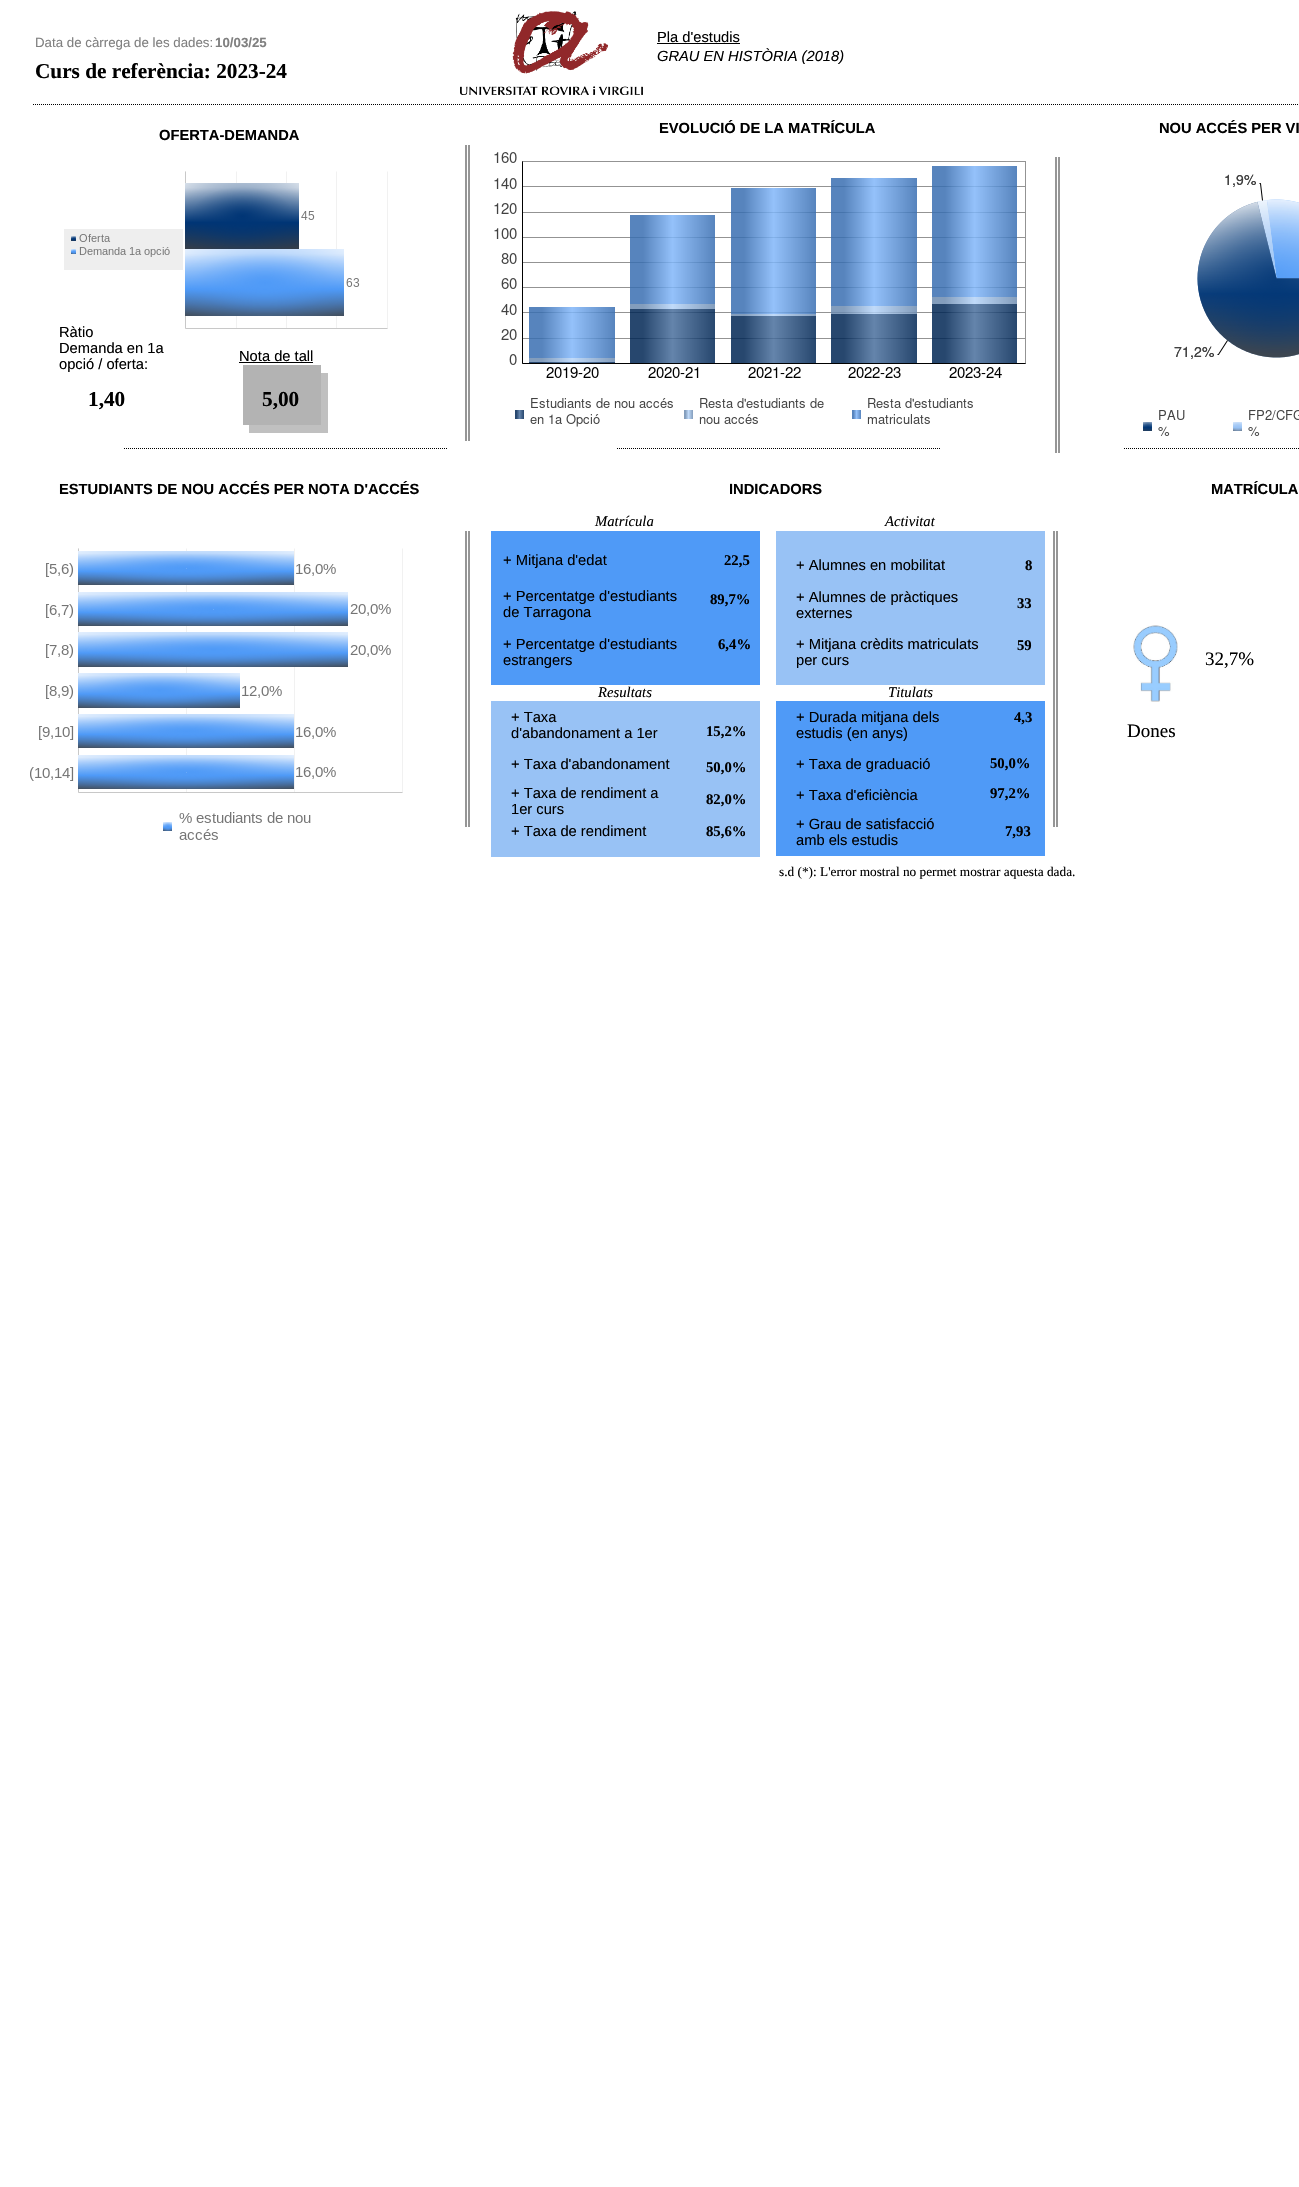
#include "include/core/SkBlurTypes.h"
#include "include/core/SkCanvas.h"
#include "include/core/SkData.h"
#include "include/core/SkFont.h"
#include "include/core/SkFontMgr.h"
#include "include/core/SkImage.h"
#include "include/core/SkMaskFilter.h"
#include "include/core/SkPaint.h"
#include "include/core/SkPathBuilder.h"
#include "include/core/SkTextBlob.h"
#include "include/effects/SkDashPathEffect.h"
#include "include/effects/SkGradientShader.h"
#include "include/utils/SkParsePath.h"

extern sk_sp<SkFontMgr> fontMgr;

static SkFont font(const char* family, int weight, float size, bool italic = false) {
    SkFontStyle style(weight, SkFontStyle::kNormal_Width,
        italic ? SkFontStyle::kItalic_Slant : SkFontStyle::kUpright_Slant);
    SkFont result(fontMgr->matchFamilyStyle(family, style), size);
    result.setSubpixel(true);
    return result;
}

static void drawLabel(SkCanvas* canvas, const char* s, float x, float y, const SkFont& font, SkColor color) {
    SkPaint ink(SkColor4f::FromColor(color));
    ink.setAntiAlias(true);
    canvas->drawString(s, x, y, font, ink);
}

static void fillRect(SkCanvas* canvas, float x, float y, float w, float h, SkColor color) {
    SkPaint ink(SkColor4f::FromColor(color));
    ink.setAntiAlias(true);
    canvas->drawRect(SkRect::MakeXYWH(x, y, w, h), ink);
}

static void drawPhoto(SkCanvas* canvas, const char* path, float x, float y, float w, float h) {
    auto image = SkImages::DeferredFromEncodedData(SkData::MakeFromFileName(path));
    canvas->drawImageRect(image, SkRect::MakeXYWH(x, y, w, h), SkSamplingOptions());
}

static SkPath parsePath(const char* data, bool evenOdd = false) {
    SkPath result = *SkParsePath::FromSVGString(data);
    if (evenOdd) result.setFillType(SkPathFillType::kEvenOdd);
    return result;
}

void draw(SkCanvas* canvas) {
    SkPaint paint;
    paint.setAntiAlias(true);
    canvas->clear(0xFFFFFFFF);
    SkFont font1 = font("Liberation Sans", 400, 13.3f);
    drawLabel(canvas, "Data de càrrega de les dades:", 35, 47, font1, 0xFF808080);
    SkFont font2 = font("Liberation Sans", 700, 13.3f);
    drawLabel(canvas, "10/03/25", 215, 47, font2, 0xFF808080);
    drawPhoto(canvas, "assets/img1.png", 460, 11, 183, 84);
    SkFont font3 = font("Liberation Sans", 400, 14.7f);
    drawLabel(canvas, "Pla d'estudis", 657, 42, font3, 0xFF000000);
    fillRect(canvas, 657, 43, 83, 1, 0xFF000000);
    SkFont font4 = font("Liberation Sans", 400, 14.7f, true);
    drawLabel(canvas, "GRAU EN HISTÒRIA (2018)", 657, 61, font4, 0xFF000000);
    SkFont font5 = font("Liberation Serif", 700, 21.25f);
    drawLabel(canvas, "Curs de referència: 2023-24", 35, 78, font5, 0xFF000000);
    paint.setStroke(true);
    paint.setStrokeWidth(1);
    paint.setColor(0xFF000000);
    paint.setPathEffect(SkDashPathEffect::Make({{1, 1}}, 0));
    canvas->drawPath(parsePath("M33 104.5H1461"), paint);
    paint.setPathEffect(nullptr);
    SkFont font6 = font("Liberation Sans", 700, 14.7f);
    drawLabel(canvas, "OFERTA-DEMANDA", 159, 140, font6, 0xFF000000);
    drawLabel(canvas, "EVOLUCIÓ DE LA MATRÍCULA", 659, 133, font6, 0xFF000000);
    drawLabel(canvas, "NOU ACCÉS PER VI", 1159, 133, font6, 0xFF000000);
    drawPhoto(canvas, "assets/img2.png", 64, 171, 324, 158);
    fillRect(canvas, 465, 145, 2, 296, 0xFF969696);
    fillRect(canvas, 468, 145, 2, 296, 0xFF969696);
    drawPhoto(canvas, "assets/img3.png", 494, 152, 532, 275);
    fillRect(canvas, 1055, 157, 2, 296, 0xFF969696);
    fillRect(canvas, 1058, 157, 2, 296, 0xFF969696);
    drawPhoto(canvas, "assets/img4.png", 1143, 174, 156, 262);
    drawLabel(canvas, "Ràtio", 59, 337, font3, 0xFF000000);
    drawLabel(canvas, "Demanda en 1a", 59, 353, font3, 0xFF000000);
    drawLabel(canvas, "opció / oferta:", 59, 369, font3, 0xFF000000);
    drawLabel(canvas, "Nota de tall", 239, 361, font3, 0xFF000000);
    fillRect(canvas, 239, 362, 74, 1, 0xFF000000);
    fillRect(canvas, 249, 373, 79, 60, 0xFFC0C0C0);
    fillRect(canvas, 243, 365, 78, 60, 0xFFB3B3B3);
    drawLabel(canvas, "1,40", 88, 406, font5, 0xFF000000);
    drawLabel(canvas, "5,00", 262, 406, font5, 0xFF000000);
    paint.setPathEffect(SkDashPathEffect::Make({{1, 1}}, 0));
    canvas->drawPath(parsePath("M124 448.5H447"), paint);
    paint.setPathEffect(nullptr);
    paint.setPathEffect(SkDashPathEffect::Make({{1, 1}}, 0));
    canvas->drawPath(parsePath("M617 448.5H940"), paint);
    paint.setPathEffect(nullptr);
    paint.setPathEffect(SkDashPathEffect::Make({{1, 1}}, 0));
    canvas->drawPath(parsePath("M1124 448.5H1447"), paint);
    paint.setPathEffect(nullptr);
    drawLabel(canvas, "ESTUDIANTS DE NOU ACCÉS PER NOTA D'ACCÉS", 59, 494, font6, 0xFF000000);
    drawLabel(canvas, "INDICADORS", 729, 494, font6, 0xFF000000);
    drawLabel(canvas, "MATRÍCULA", 1211, 494, font6, 0xFF000000);
    SkFont font7 = font("Liberation Serif", 400, 14.7f, true);
    drawLabel(canvas, "Matrícula", 595, 526, font7, 0xFF000000);
    drawLabel(canvas, "Activitat", 885, 526, font7, 0xFF000000);
    drawPhoto(canvas, "assets/img5.png", 30, 548, 373, 292);
    fillRect(canvas, 465, 531, 2, 296, 0xFF969696);
    fillRect(canvas, 468, 531, 2, 296, 0xFF969696);
    fillRect(canvas, 491, 531, 269, 154, 0xFF4F9AF7);
    fillRect(canvas, 776, 531, 269, 154, 0xFF98C2F5);
    fillRect(canvas, 1053, 531, 2, 296, 0xFF969696);
    fillRect(canvas, 1056, 531, 2, 296, 0xFF969696);
    drawLabel(canvas, "+ Mitjana d'edat", 503, 565, font3, 0xFF000000);
    SkFont font8 = font("Liberation Serif", 700, 14.7f);
    drawLabel(canvas, "22,5", 724, 565, font8, 0xFF000000);
    drawLabel(canvas, "+ Alumnes en mobilitat", 796, 570, font3, 0xFF000000);
    drawLabel(canvas, "8", 1025, 570, font8, 0xFF000000);
    drawLabel(canvas, "+ Percentatge d'estudiants", 503, 601, font3, 0xFF000000);
    drawLabel(canvas, "de Tarragona", 503, 617, font3, 0xFF000000);
    drawLabel(canvas, "89,7%", 710, 604, font8, 0xFF000000);
    drawLabel(canvas, "+ Alumnes de pràctiques", 796, 602, font3, 0xFF000000);
    drawLabel(canvas, "externes", 796, 618, font3, 0xFF000000);
    drawLabel(canvas, "33", 1017, 608, font8, 0xFF000000);
    drawLabel(canvas, "+ Percentatge d'estudiants", 503, 649, font3, 0xFF000000);
    drawLabel(canvas, "estrangers", 503, 665, font3, 0xFF000000);
    drawLabel(canvas, "6,4%", 718, 649, font8, 0xFF000000);
    drawLabel(canvas, "+ Mitjana crèdits matriculats", 796, 649, font3, 0xFF000000);
    drawLabel(canvas, "per curs", 796, 665, font3, 0xFF000000);
    drawLabel(canvas, "59", 1017, 650, font8, 0xFF000000);
    drawPhoto(canvas, "assets/img6.png", 1133, 625, 45, 77);
    SkFont font9 = font("Liberation Serif", 400, 19);
    drawLabel(canvas, "32,7%", 1205, 665, font9, 0xFF000000);
    drawLabel(canvas, "Resultats", 598, 697, font7, 0xFF000000);
    drawLabel(canvas, "Titulats", 888, 697, font7, 0xFF000000);
    fillRect(canvas, 491, 701, 269, 156, 0xFF98C2F5);
    fillRect(canvas, 776, 701, 269, 155, 0xFF4F9AF7);
    drawLabel(canvas, "+ Taxa", 511, 722, font3, 0xFF000000);
    drawLabel(canvas, "d'abandonament a 1er", 511, 738, font3, 0xFF000000);
    drawLabel(canvas, "+ Durada mitjana dels", 796, 722, font3, 0xFF000000);
    drawLabel(canvas, "estudis (en anys)", 796, 738, font3, 0xFF000000);
    drawLabel(canvas, "4,3", 1014, 722, font8, 0xFF000000);
    drawLabel(canvas, "15,2%", 706, 736, font8, 0xFF000000);
    drawLabel(canvas, "Dones", 1127, 737, font9, 0xFF000000);
    drawLabel(canvas, "+ Taxa d'abandonament", 511, 769, font3, 0xFF000000);
    drawLabel(canvas, "50,0%", 706, 772, font8, 0xFF000000);
    drawLabel(canvas, "+ Taxa de graduació", 796, 769, font3, 0xFF000000);
    drawLabel(canvas, "50,0%", 990, 768, font8, 0xFF000000);
    drawLabel(canvas, "+ Taxa de rendiment a", 511, 798, font3, 0xFF000000);
    drawLabel(canvas, "1er curs", 511, 814, font3, 0xFF000000);
    drawLabel(canvas, "82,0%", 706, 804, font8, 0xFF000000);
    drawLabel(canvas, "+ Taxa d'eficiència", 796, 800, font3, 0xFF000000);
    drawLabel(canvas, "97,2%", 990, 798, font8, 0xFF000000);
    drawLabel(canvas, "+ Taxa de rendiment", 511, 836, font3, 0xFF000000);
    drawLabel(canvas, "85,6%", 706, 836, font8, 0xFF000000);
    drawLabel(canvas, "+ Grau de satisfacció", 796, 829, font3, 0xFF000000);
    drawLabel(canvas, "amb els estudis", 796, 845, font3, 0xFF000000);
    drawLabel(canvas, "7,93", 1005, 836, font8, 0xFF000000);
    SkFont font10 = font("Liberation Serif", 400, 13.3f);
    drawLabel(canvas, "s.d (*): L'error mostral no permet mostrar aquesta dada.", 779, 876, font10, 0xFF000000);
}
